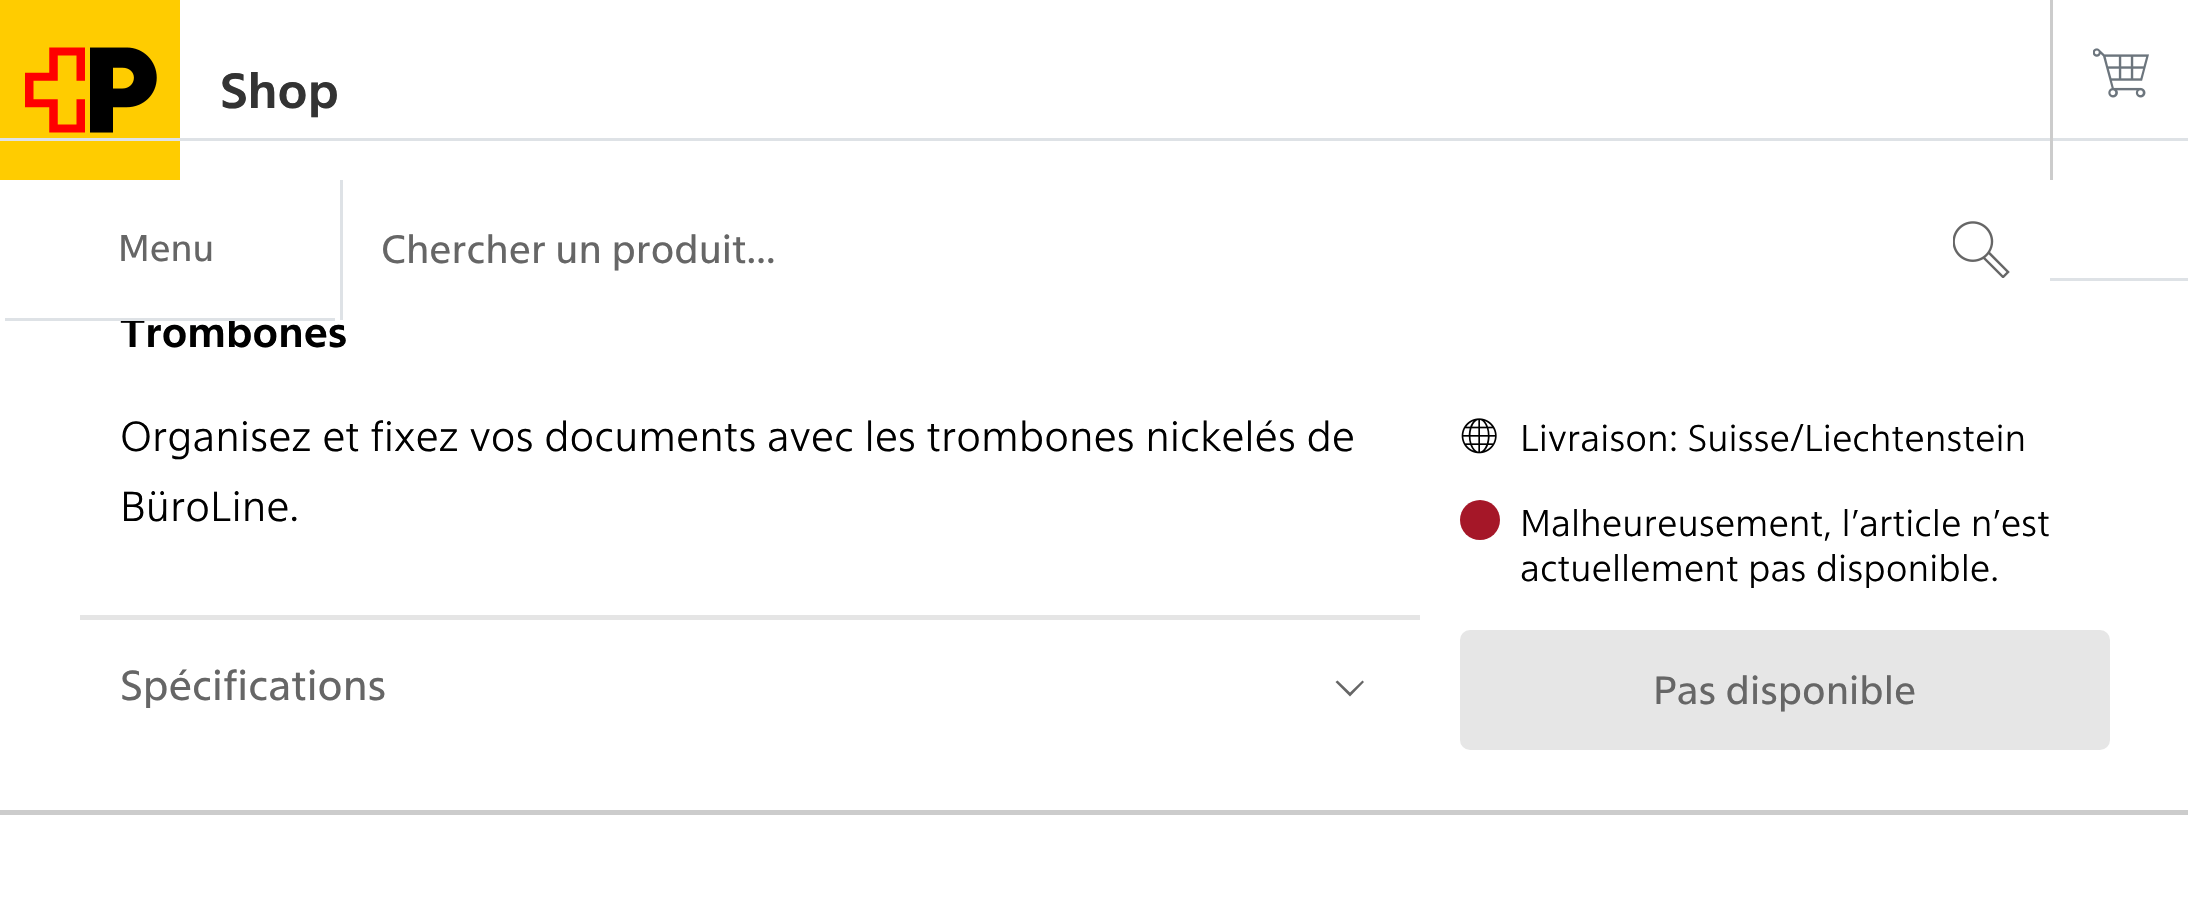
#include "include/core/SkBlurTypes.h"
#include "include/core/SkCanvas.h"
#include "include/core/SkData.h"
#include "include/core/SkFont.h"
#include "include/core/SkFontMgr.h"
#include "include/core/SkImage.h"
#include "include/core/SkMaskFilter.h"
#include "include/core/SkPaint.h"
#include "include/core/SkPathBuilder.h"
#include "include/core/SkTextBlob.h"
#include "include/effects/SkDashPathEffect.h"
#include "include/effects/SkGradientShader.h"
#include "include/utils/SkParsePath.h"

extern sk_sp<SkFontMgr> fontMgr;

static SkFont font(const char* family, int weight, float size, bool italic = false) {
    SkFontStyle style(weight, SkFontStyle::kNormal_Width,
        italic ? SkFontStyle::kItalic_Slant : SkFontStyle::kUpright_Slant);
    SkFont result(fontMgr->matchFamilyStyle(family, style), size);
    result.setSubpixel(true);
    return result;
}

static void drawLabel(SkCanvas* canvas, const char* s, float x, float y, const SkFont& font, SkColor color) {
    SkPaint ink(SkColor4f::FromColor(color));
    ink.setAntiAlias(true);
    canvas->drawString(s, x, y, font, ink);
}

static void fillRect(SkCanvas* canvas, float x, float y, float w, float h, SkColor color) {
    SkPaint ink(SkColor4f::FromColor(color));
    ink.setAntiAlias(true);
    canvas->drawRect(SkRect::MakeXYWH(x, y, w, h), ink);
}

static void fillRRect(SkCanvas* canvas, float x, float y, float w, float h, float radius, SkColor color) {
    SkPaint ink(SkColor4f::FromColor(color));
    ink.setAntiAlias(true);
    canvas->drawRoundRect(SkRect::MakeXYWH(x, y, w, h), radius, radius, ink);
}

static void drawPhoto(SkCanvas* canvas, const char* path, float x, float y, float w, float h) {
    auto image = SkImages::DeferredFromEncodedData(SkData::MakeFromFileName(path));
    canvas->drawImageRect(image, SkRect::MakeXYWH(x, y, w, h), SkSamplingOptions());
}

static SkPath parsePath(const char* data, bool evenOdd = false) {
    SkPath result = *SkParsePath::FromSVGString(data);
    if (evenOdd) result.setFillType(SkPathFillType::kEvenOdd);
    return result;
}

void draw(SkCanvas* canvas) {
    SkPaint paint;
    paint.setAntiAlias(true);
    canvas->clear(0xFFFFFFFF);
    fillRect(canvas, 2050, 278, 138, 3, 0xFFDEE2E6);
    drawPhoto(canvas, "assets/img1.png", 0, 0, 180, 180);
    SkFont font1 = font("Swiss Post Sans", 700, 50);
    drawLabel(canvas, "Shop", 220, 108, font1, 0xFF333333);
    fillRect(canvas, 0, 138, 2188, 3, 0xFFDEE2E6);
    fillRect(canvas, 2050, 0, 3, 180, 0xFFCCCCCC);
    drawPhoto(canvas, "assets/img2.png", 2093, 48, 56, 50);
    SkFont font2 = font("Swiss Post Sans", 700, 42.5f);
    drawLabel(canvas, "Trombones", 120, 347, font2, 0xFF000000);
    fillRRect(canvas, 0, 180, 340, 140, 10, 0xFFFFFFFF);
    fillRect(canvas, 5, 318, 330, 3, 0xFFDEE2E6);
    SkFont font3 = font("Swiss Post Sans", 400, 37.5f);
    drawLabel(canvas, "Menu", 118, 261, font3, 0xFF666666);
    fillRect(canvas, 340, 180, 3, 140, 0xFFDEE2E6);
    SkFont font4 = font("Swiss Post Sans", 400, 40);
    drawLabel(canvas, "Chercher un produit...", 381, 263, font4, 0xFF666666);
    drawPhoto(canvas, "assets/img3.png", 1953, 221, 57, 57);
    SkFont font5 = font("Swiss Post Sans", 300, 42.5f);
    drawLabel(canvas, "Organisez et fixez vos documents avec les trombones nickelés de", 120, 451, font5, 0xFF000000);
    drawLabel(canvas, "BüroLine.", 120, 521, font5, 0xFF000000);
    fillRect(canvas, 80, 615, 1340, 5, 0xFFE5E5E5);
    SkFont font6 = font("Swiss Post Sans", 400, 42.5f);
    drawLabel(canvas, "Spécifications", 120, 700, font6, 0xFF666666);
    paint.setColor(0xFF666666);
    canvas->drawPath(parsePath("M1335.5 682L1337.5 680.5L1350 692.5L1362.5 680.5L1364 682L1350 696.5Z"), paint);
    drawPhoto(canvas, "assets/img4.png", 1461, 418, 36, 36);
    SkFont font7 = font("Swiss Post Sans", 300, 37.5f);
    drawLabel(canvas, "Livraison: Suisse/Liechtenstein", 1520, 451, font7, 0xFF000000);
    paint.setColor(0xFFA51728);
    canvas->drawCircle(1480, 520, 20, paint);
    drawLabel(canvas, "Malheureusement, l’article n’est", 1520, 536, font7, 0xFF000000);
    drawLabel(canvas, "actuellement pas disponible.", 1520, 581, font7, 0xFF000000);
    paint.setColor(0xFFE6E6E6);
    canvas->drawRoundRect(SkRect::MakeXYWH(1462.5f, 632.5f, 645, 115), 7.5f, 7.5f, paint);
    paint.setStroke(true);
    paint.setStrokeWidth(5);
    canvas->drawRoundRect(SkRect::MakeXYWH(1462.5f, 632.5f, 645, 115), 7.5f, 7.5f, paint);
    drawLabel(canvas, "Pas disponible", 1653, 704, font4, 0xFF666666);
    fillRect(canvas, 0, 810, 2188, 5, 0xFFCCCCCC);
}
